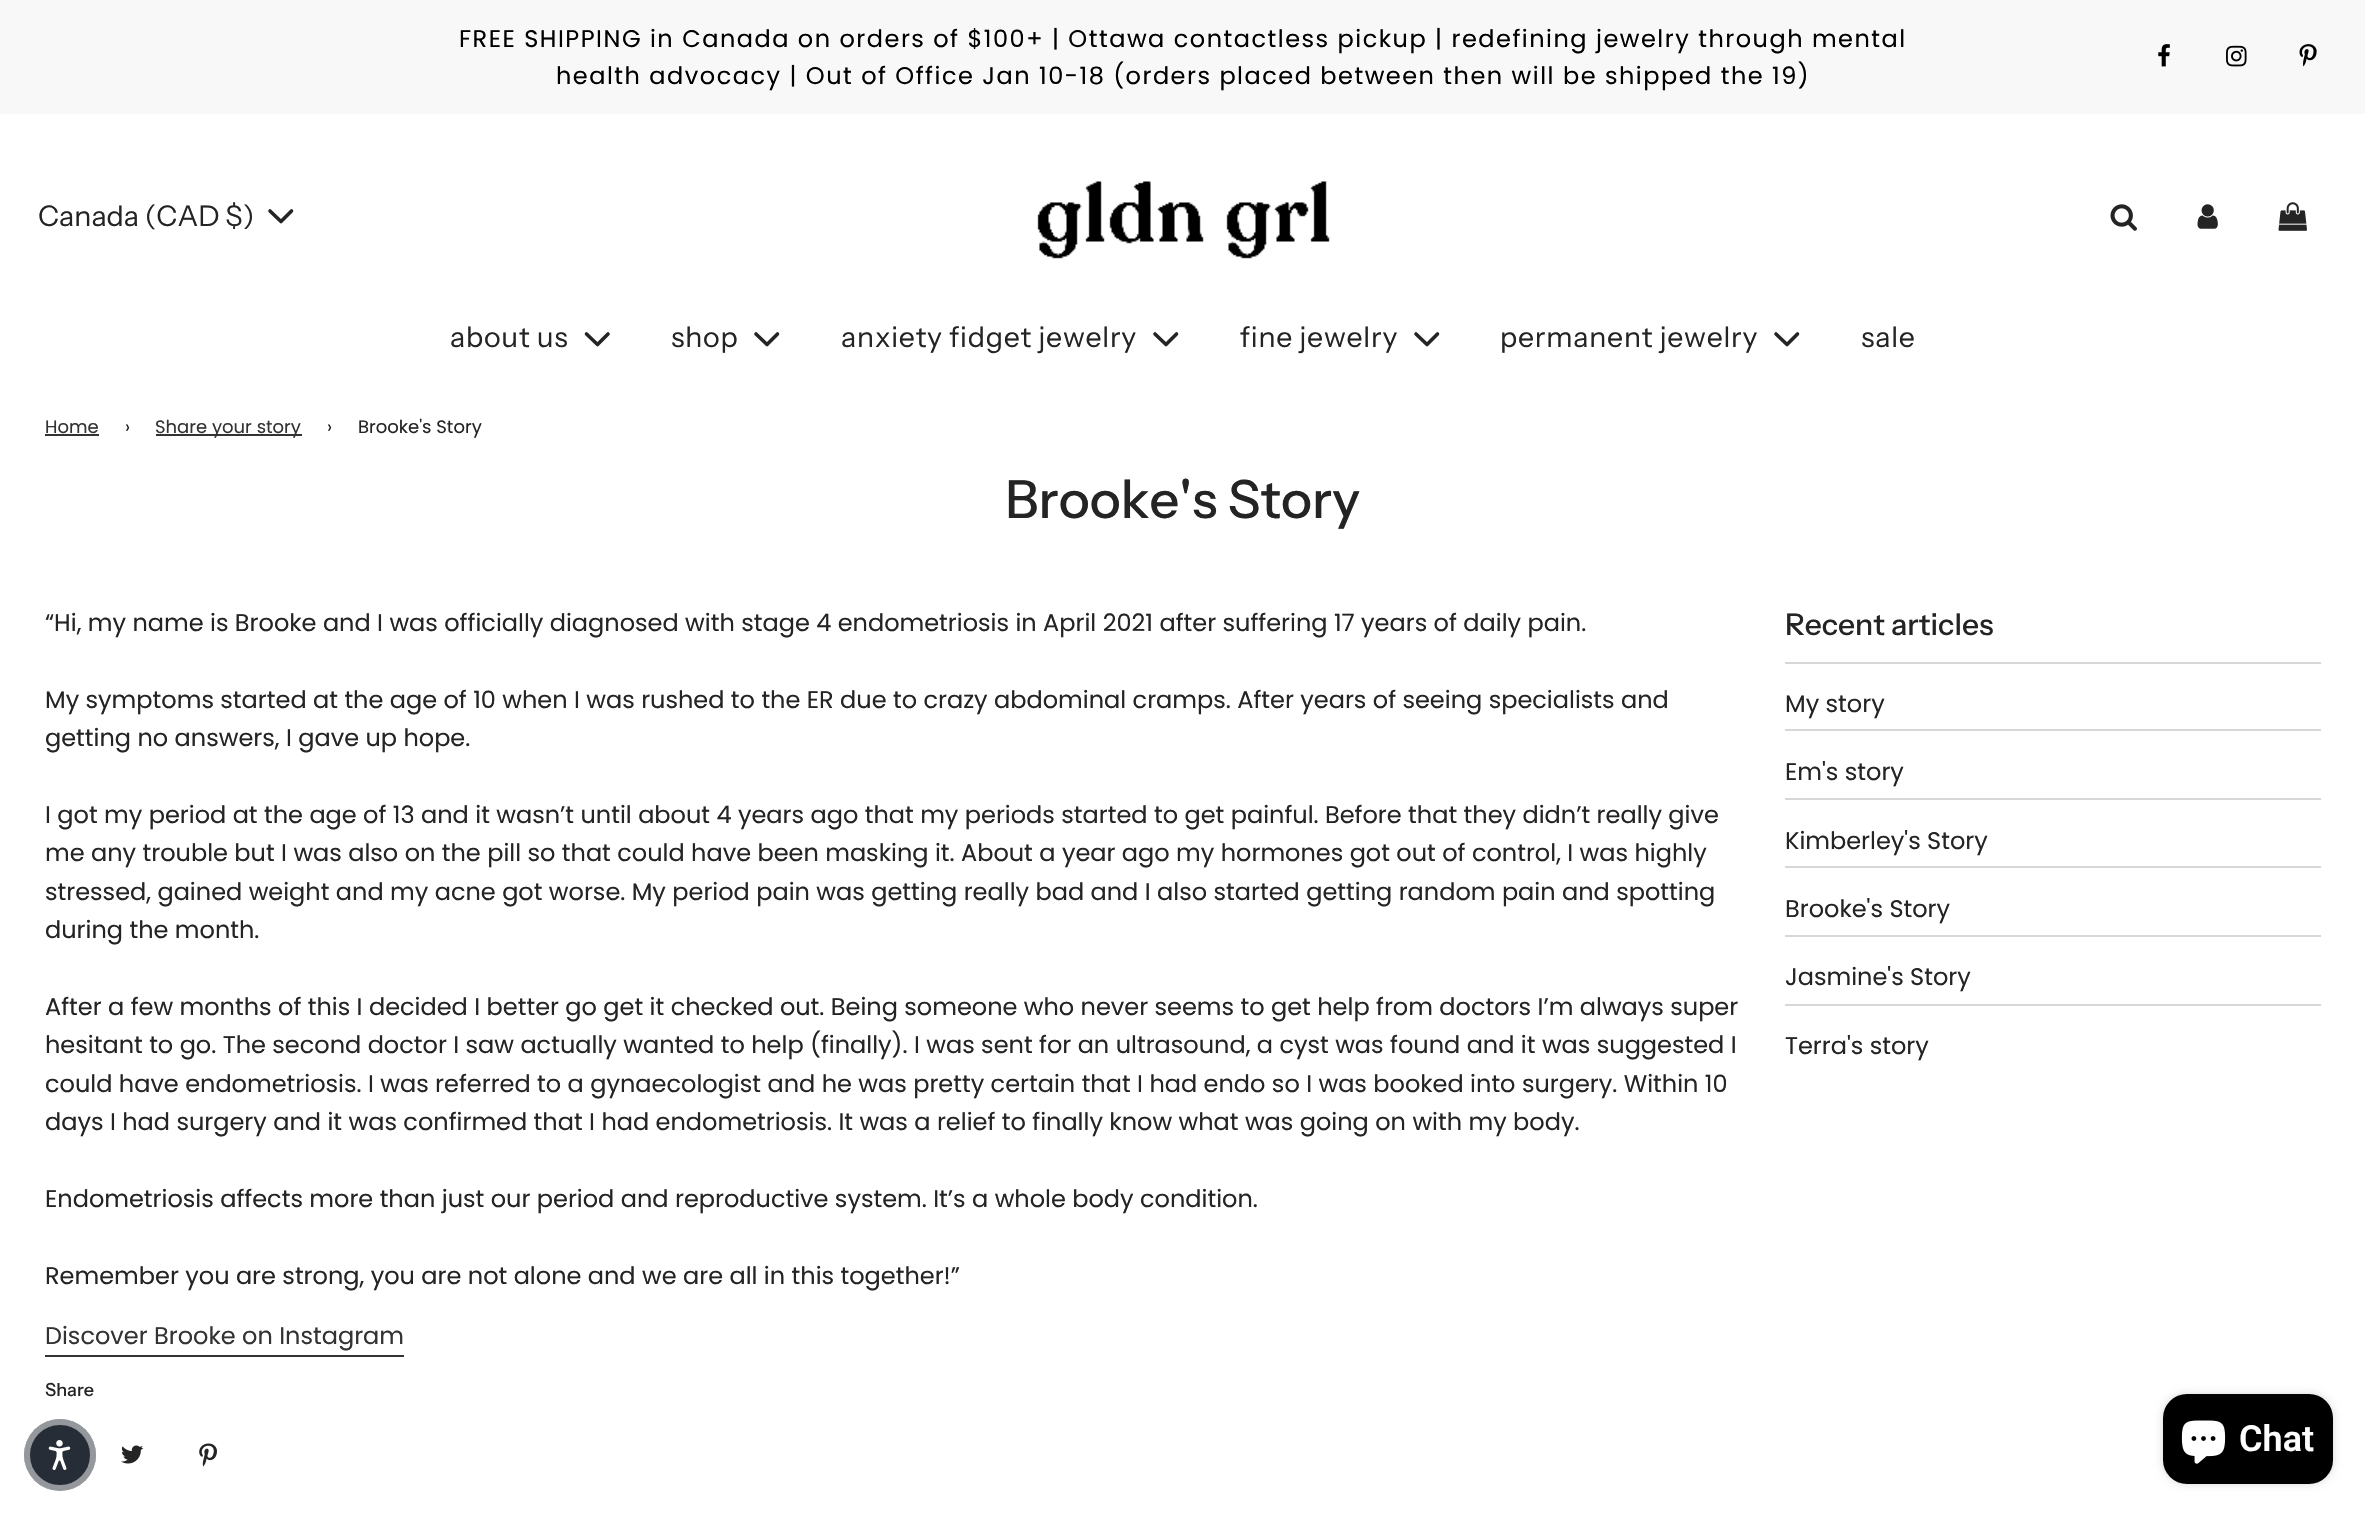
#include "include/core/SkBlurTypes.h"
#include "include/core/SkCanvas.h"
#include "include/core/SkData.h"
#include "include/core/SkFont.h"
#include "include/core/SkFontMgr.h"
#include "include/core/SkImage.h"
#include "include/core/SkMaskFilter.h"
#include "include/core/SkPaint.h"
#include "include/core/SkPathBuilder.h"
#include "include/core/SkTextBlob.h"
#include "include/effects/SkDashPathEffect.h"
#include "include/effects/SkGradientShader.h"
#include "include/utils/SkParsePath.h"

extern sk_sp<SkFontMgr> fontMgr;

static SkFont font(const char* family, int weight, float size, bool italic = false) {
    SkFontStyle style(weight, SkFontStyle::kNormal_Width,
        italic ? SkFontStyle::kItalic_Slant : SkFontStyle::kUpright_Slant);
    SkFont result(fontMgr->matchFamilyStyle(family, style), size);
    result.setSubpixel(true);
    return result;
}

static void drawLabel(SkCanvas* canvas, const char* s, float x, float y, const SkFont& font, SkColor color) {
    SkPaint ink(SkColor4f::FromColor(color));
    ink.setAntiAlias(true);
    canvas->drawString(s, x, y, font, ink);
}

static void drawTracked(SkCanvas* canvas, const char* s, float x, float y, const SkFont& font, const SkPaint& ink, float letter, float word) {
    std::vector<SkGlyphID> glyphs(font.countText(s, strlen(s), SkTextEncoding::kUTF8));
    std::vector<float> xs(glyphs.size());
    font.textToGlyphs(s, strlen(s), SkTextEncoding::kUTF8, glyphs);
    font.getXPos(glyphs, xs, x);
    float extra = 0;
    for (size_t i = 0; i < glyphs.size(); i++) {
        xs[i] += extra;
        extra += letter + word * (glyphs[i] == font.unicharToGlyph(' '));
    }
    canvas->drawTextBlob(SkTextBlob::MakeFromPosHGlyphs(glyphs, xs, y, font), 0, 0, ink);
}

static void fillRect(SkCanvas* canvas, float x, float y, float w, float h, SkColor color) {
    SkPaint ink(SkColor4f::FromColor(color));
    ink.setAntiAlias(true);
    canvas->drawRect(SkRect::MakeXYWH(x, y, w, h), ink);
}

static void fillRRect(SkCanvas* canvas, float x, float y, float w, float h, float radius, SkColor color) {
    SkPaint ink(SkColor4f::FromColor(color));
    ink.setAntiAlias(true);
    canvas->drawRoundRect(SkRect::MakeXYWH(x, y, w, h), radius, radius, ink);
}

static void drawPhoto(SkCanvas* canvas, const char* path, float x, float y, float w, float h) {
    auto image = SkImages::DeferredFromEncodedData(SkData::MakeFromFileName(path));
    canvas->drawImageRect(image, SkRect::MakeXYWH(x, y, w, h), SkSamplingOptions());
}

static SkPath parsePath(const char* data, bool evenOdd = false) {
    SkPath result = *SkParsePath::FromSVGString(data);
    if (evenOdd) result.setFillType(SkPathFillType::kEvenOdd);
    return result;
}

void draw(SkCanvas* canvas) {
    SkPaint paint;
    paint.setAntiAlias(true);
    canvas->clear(0xFFFFFFFF);
    fillRect(canvas, 0, 0, 2365, 114, 0xFFF8F8F8);
    SkFont font1 = font("Poppins", 400, 24);
    paint.setColor(0xFF000000);
    drawTracked(canvas, "FREE SHIPPING in Canada on orders of $100+ | Ottawa contactless pickup | redefining jewelry through mental", 459, 47, font1, paint, 1.5f, 0);
    drawTracked(canvas, "health advocacy | Out of Office Jan 10-18 (orders placed between then will be shipped the 19)", 556, 84, font1, paint, 1.5f, 0);
    drawPhoto(canvas, "assets/img1.png", 2158, 44, 12, 23);
    drawPhoto(canvas, "assets/img2.png", 2226, 45, 21, 22);
    drawPhoto(canvas, "assets/img3.png", 2299, 44, 18, 23);
    SkFont font2 = font("Instrument Sans", 400, 28.5f);
    drawLabel(canvas, "Canada (CAD $)", 38, 226, font2, 0xFF242424);
    paint.setStroke(true);
    paint.setStrokeWidth(3.6f);
    paint.setStrokeCap(SkPaint::kRound_Cap);
    paint.setStrokeJoin(SkPaint::kRound_Join);
    paint.setColor(0xFF242424);
    canvas->drawPath(parsePath("M270 211L281 221.5L291.5 211"), paint);
    drawPhoto(canvas, "assets/img4.png", 1037, 181, 293, 78);
    drawPhoto(canvas, "assets/img5.png", 2110, 204, 27, 27);
    drawPhoto(canvas, "assets/img6.png", 2197, 204, 21, 25);
    drawPhoto(canvas, "assets/img7.png", 2278, 202, 29, 29);
    paint.setStroke(false);
    drawTracked(canvas, "about us", 450, 347, font2, paint, 0.75f, 0);
    paint.setStroke(true);
    canvas->drawPath(parsePath("M586.5 334L597.5 344.5L608 334"), paint);
    paint.setStroke(false);
    drawTracked(canvas, "shop", 671, 347, font2, paint, 0.75f, 0);
    paint.setStroke(true);
    canvas->drawPath(parsePath("M756 334L767 344.5L777.5 334"), paint);
    paint.setStroke(false);
    drawTracked(canvas, "anxiety fidget jewelry", 841, 347, font2, paint, 0.75f, 0);
    paint.setStroke(true);
    canvas->drawPath(parsePath("M1155 334L1166 344.5L1176.5 334"), paint);
    paint.setStroke(false);
    drawTracked(canvas, "fine jewelry", 1240, 347, font2, paint, 0.75f, 0);
    paint.setStroke(true);
    canvas->drawPath(parsePath("M1416 334L1427 344.5L1437.5 334"), paint);
    paint.setStroke(false);
    drawTracked(canvas, "permanent jewelry", 1500, 347, font2, paint, 0.75f, 0);
    paint.setStroke(true);
    canvas->drawPath(parsePath("M1776 334L1787 344.5L1797.5 334"), paint);
    paint.setStroke(false);
    drawTracked(canvas, "sale", 1861, 347, font2, paint, 0.75f, 0);
    SkFont font3 = font("Poppins", 400, 18);
    drawLabel(canvas, "Home", 45, 433, font3, 0xFF333333);
    fillRect(canvas, 45, 434, 54, 2, 0xFF333333);
    drawLabel(canvas, "›", 125, 433, font3, 0xFF242424);
    fillRect(canvas, 156, 434, 146, 2, 0xFF333333);
    drawLabel(canvas, "Share your story", 155, 433, font3, 0xFF333333);
    drawLabel(canvas, "›", 327, 433, font3, 0xFF242424);
    drawLabel(canvas, "Brooke's Story", 358, 433, font3, 0xFF242424);
    SkFont font4 = font("Instrument Sans", 500, 52.5f);
    drawLabel(canvas, "Brooke's Story", 1005, 518, font4, 0xFF242424);
    drawLabel(canvas, "“Hi, my name is Brooke and I was officially diagnosed with stage 4 endometriosis in April 2021 after suffering 17 years of daily pain.", 45, 631, font1, 0xFF242424);
    drawLabel(canvas, "My symptoms started at the age of 10 when I was rushed to the ER due to crazy abdominal cramps. After years of seeing specialists and", 45, 708, font1, 0xFF242424);
    drawLabel(canvas, "getting no answers, I gave up hope.", 45, 746, font1, 0xFF242424);
    drawLabel(canvas, "I got my period at the age of 13 and it wasn’t until about 4 years ago that my periods started to get painful. Before that they didn’t really give", 45, 823, font1, 0xFF242424);
    drawLabel(canvas, "me any trouble but I was also on the pill so that could have been masking it. About a year ago my hormones got out of control, I was highly", 45, 861, font1, 0xFF242424);
    drawLabel(canvas, "stressed, gained weight and my acne got worse. My period pain was getting really bad and I also started getting random pain and spotting", 45, 900, font1, 0xFF242424);
    drawLabel(canvas, "during the month.", 45, 938, font1, 0xFF242424);
    drawLabel(canvas, "After a few months of this I decided I better go get it checked out. Being someone who never seems to get help from doctors I’m always super", 45, 1015, font1, 0xFF242424);
    drawLabel(canvas, "hesitant to go. The second doctor I saw actually wanted to help (finally). I was sent for an ultrasound, a cyst was found and it was suggested I", 45, 1053, font1, 0xFF242424);
    drawLabel(canvas, "could have endometriosis. I was referred to a gynaecologist and he was pretty certain that I had endo so I was booked into surgery. Within 10", 45, 1092, font1, 0xFF242424);
    drawLabel(canvas, "days I had surgery and it was confirmed that I had endometriosis. It was a relief to finally know what was going on with my body.", 45, 1130, font1, 0xFF242424);
    drawLabel(canvas, "Endometriosis affects more than just our period and reproductive system. It’s a whole body condition.", 45, 1207, font1, 0xFF242424);
    drawLabel(canvas, "Remember you are strong, you are not alone and we are all in this together!”", 45, 1284, font1, 0xFF242424);
    drawLabel(canvas, "Discover Brooke on Instagram", 45, 1344, font1, 0xFF333333);
    fillRect(canvas, 45, 1355, 359, 2, 0xFF333333);
    SkFont font5 = font("Instrument Sans", 500, 18);
    drawLabel(canvas, "Share", 45, 1396, font5, 0xFF242424);
    drawPhoto(canvas, "assets/img8.png", 121, 1445, 23, 19);
    drawPhoto(canvas, "assets/img9.png", 199, 1443, 18, 24);
    SkFont font6 = font("Instrument Sans", 500, 30);
    drawLabel(canvas, "Recent articles", 1785, 635, font6, 0xFF242424);
    fillRect(canvas, 1785, 662, 536, 2, 0xFFD7D7D7);
    drawLabel(canvas, "My story", 1785, 712, font1, 0xFF242424);
    fillRect(canvas, 1785, 729, 536, 2, 0xFFD7D7D7);
    drawLabel(canvas, "Em's story", 1785, 780, font1, 0xFF242424);
    fillRect(canvas, 1785, 798, 536, 2, 0xFFD7D7D7);
    drawLabel(canvas, "Kimberley's Story", 1785, 849, font1, 0xFF242424);
    fillRect(canvas, 1785, 866, 536, 2, 0xFFD7D7D7);
    drawLabel(canvas, "Brooke's Story", 1785, 917, font1, 0xFF242424);
    fillRect(canvas, 1785, 935, 536, 2, 0xFFD7D7D7);
    drawLabel(canvas, "Jasmine's Story", 1785, 985, font1, 0xFF242424);
    fillRect(canvas, 1785, 1004, 536, 2, 0xFFD7D7D7);
    drawLabel(canvas, "Terra's story", 1785, 1054, font1, 0xFF242424);
    paint.setColor(0xFF272D36);
    canvas->drawCircle(60, 1455, 36, paint);
    paint.setStroke(true);
    paint.setStrokeWidth(6);
    paint.setStrokeCap(SkPaint::kButt_Cap);
    paint.setStrokeJoin(SkPaint::kMiter_Join);
    paint.setColor(0x80FFFFFF);
    canvas->drawCircle(60, 1455, 33, paint);
    drawPhoto(canvas, "assets/img10.png", 48, 1440, 23, 30);
    paint.setStroke(false);
    paint.setColor(0x26000000);
    paint.setMaskFilter(SkMaskFilter::MakeBlur(kNormal_SkBlurStyle, 4));
    canvas->drawRoundRect(SkRect::MakeXYWH(2163, 1394, 170, 90), 24, 24, paint);
    paint.setMaskFilter(nullptr);
    fillRRect(canvas, 2163, 1394, 170, 90, 24, 0xFF000000);
    drawPhoto(canvas, "assets/img11.png", 2181, 1420, 45, 44);
    SkFont font7 = font("Roboto", 600, 36);
    drawLabel(canvas, "Chat", 2239, 1451, font7, 0xFFFFFFFF);
}
